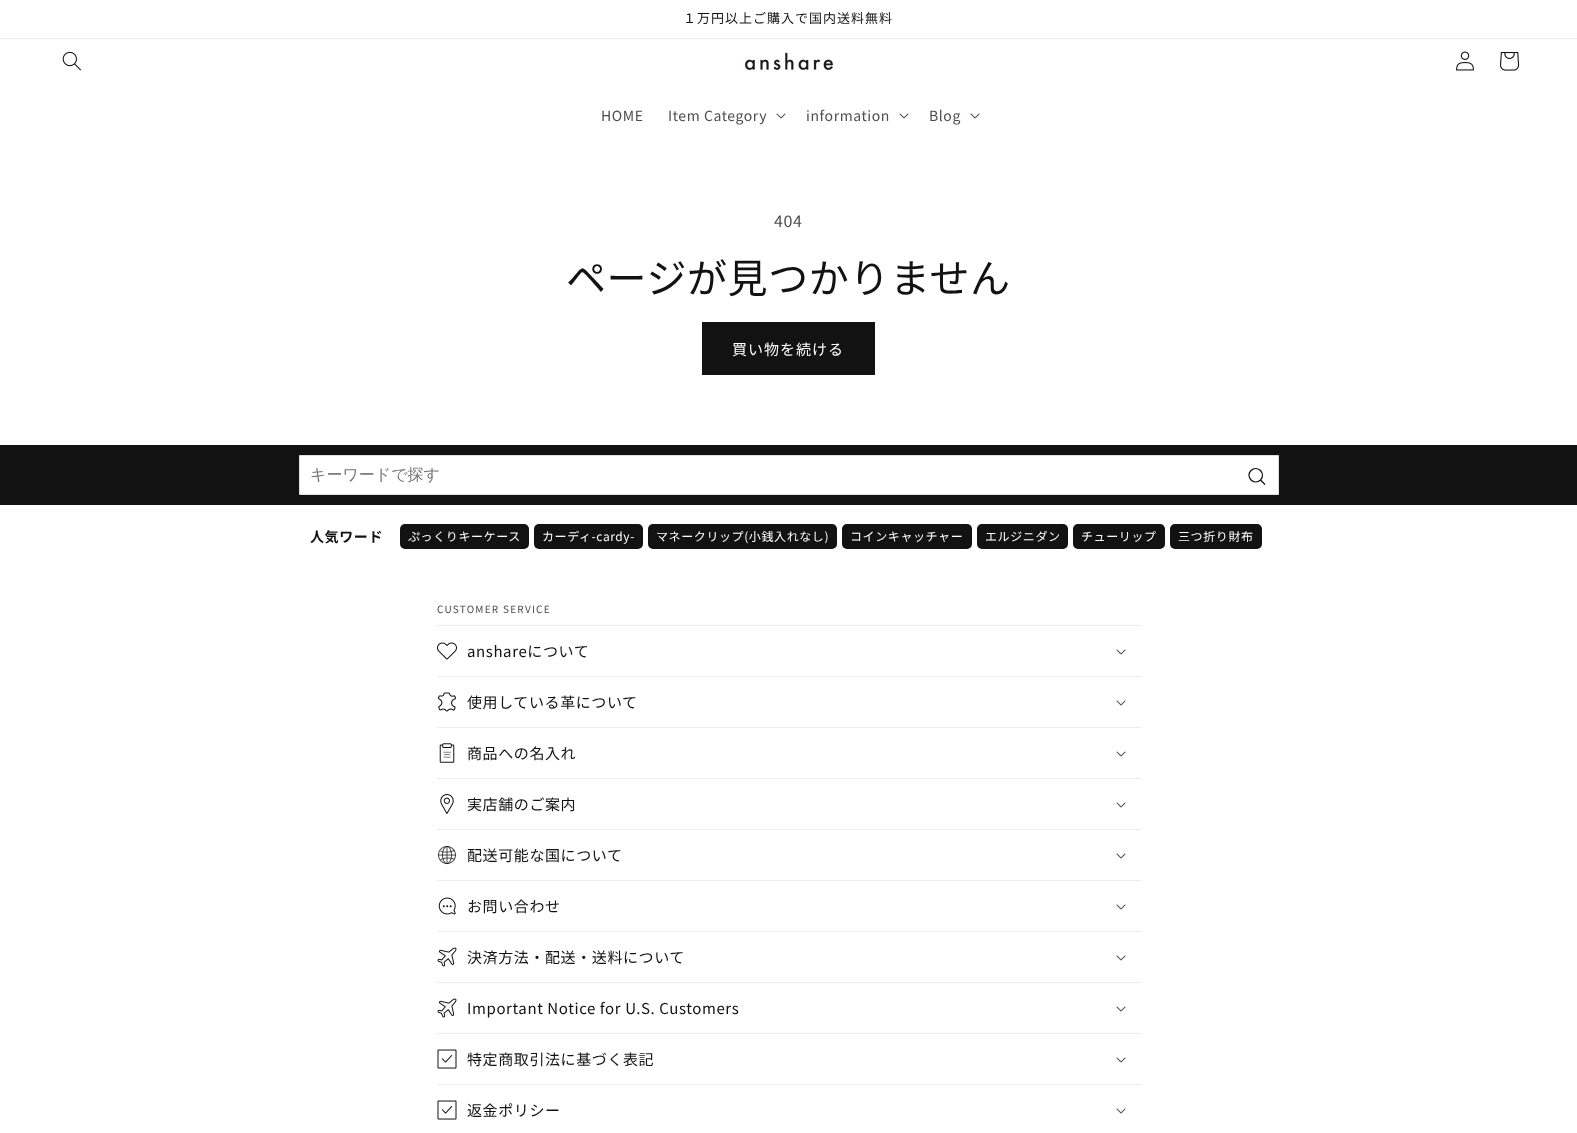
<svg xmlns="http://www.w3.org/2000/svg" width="1577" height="1133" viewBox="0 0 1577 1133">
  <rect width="100%" height="100%" fill="#fff"/>
  <path d="M0 38h1577v1H0z" fill="#ececec"/>
  <image x="62" y="51" width="19" height="20" href="img/1.png"/>
  <image x="744" y="52" width="89" height="18" href="img/2.png"/>
  <image x="1456" y="51" width="18" height="20" href="img/3.png"/>
  <image x="1500" y="52" width="20" height="19" href="img/4.png"/>
  <image x="776" y="113" width="10" height="6" href="img/5.png"/>
  <image x="899" y="113" width="10" height="6" href="img/5.png"/>
  <image x="970" y="113" width="10" height="6" href="img/5.png"/>
  <path d="M702 322h173v53H702z" fill="#121212"/>
  <path d="M0 445h1577v60H0z" fill="#121212"/>
  <path d="M299.5 455.5h979v39H299.5z" fill="#fff" stroke="#dfdfdf"/>
  <path d="M1260.5 480C1266.5 473.5 1257.5 464.5 1251 470.5C1245 477 1254 486 1260.5 480ZM1260.5 480L1265 484.5" fill="none" stroke="#121212" stroke-width="1.3"/>
  <rect x="400" y="524" width="129" height="25" rx="5" fill="#121212"/>
  <rect x="534" y="524" width="109" height="25" rx="5" fill="#121212"/>
  <rect x="648" y="524" width="189" height="25" rx="5" fill="#121212"/>
  <rect x="842" y="524" width="130" height="25" rx="5" fill="#121212"/>
  <rect x="977" y="524" width="91" height="25" rx="5" fill="#121212"/>
  <rect x="1073" y="524" width="92" height="25" rx="5" fill="#121212"/>
  <rect x="1170" y="524" width="92" height="25" rx="5" fill="#121212"/>
  <path d="M437 625h704v1H437z" fill="#ececec"/>
  <path d="M437 676h704v1H437z" fill="#ececec"/>
  <image x="437" y="642" width="20" height="18" href="img/6.png"/>
  <image x="1116" y="649" width="10" height="6" href="img/5.png"/>
  <path d="M437 727h704v1H437z" fill="#ececec"/>
  <image x="438" y="692" width="18" height="20" href="img/7.png"/>
  <image x="1116" y="700" width="10" height="6" href="img/5.png"/>
  <path d="M437 778h704v1H437z" fill="#ececec"/>
  <image x="439" y="743" width="16" height="20" href="img/8.png"/>
  <image x="1116" y="751" width="10" height="6" href="img/5.png"/>
  <path d="M437 829h704v1H437z" fill="#ececec"/>
  <image x="440" y="794" width="14" height="20" href="img/9.png"/>
  <image x="1116" y="802" width="10" height="6" href="img/5.png"/>
  <path d="M437 880h704v1H437z" fill="#ececec"/>
  <image x="437" y="845" width="20" height="20" href="img/10.png"/>
  <image x="1116" y="853" width="10" height="6" href="img/5.png"/>
  <path d="M437 931h704v1H437z" fill="#ececec"/>
  <image x="438" y="897" width="18" height="18" href="img/11.png"/>
  <image x="1116" y="904" width="10" height="6" href="img/5.png"/>
  <path d="M437 982h704v1H437z" fill="#ececec"/>
  <image x="437" y="947" width="20" height="20" href="img/12.png"/>
  <image x="1116" y="955" width="10" height="6" href="img/5.png"/>
  <path d="M437 1033h704v1H437z" fill="#ececec"/>
  <image x="437" y="998" width="20" height="20" href="img/12.png"/>
  <image x="1116" y="1006" width="10" height="6" href="img/5.png"/>
  <path d="M437 1084h704v1H437z" fill="#ececec"/>
  <image x="437" y="1049" width="20" height="20" href="img/13.png"/>
  <image x="1116" y="1057" width="10" height="6" href="img/5.png"/>
  <image x="437" y="1100" width="20" height="20" href="img/13.png"/>
  <image x="1116" y="1108" width="10" height="6" href="img/5.png"/>
  <text x="683" y="23" font-family="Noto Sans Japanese" font-size="13" letter-spacing="1" fill="#121212">１万円以上ご購入で国内送料無料</text>
  <g font-family="Noto Sans Japanese" font-size="14" letter-spacing="0.6" fill="#4d4d4d">
    <text x="601" y="121">HOME</text>
    <text x="668" y="121">Item Category</text>
    <text x="806" y="121">information</text>
    <text x="929" y="121">Blog</text>
  </g>
  <text x="774" y="227" font-family="Noto Sans Japanese" font-size="16" letter-spacing="0.6" fill="#4d4d4d">404</text>
  <text x="566" y="293" font-family="Noto Sans Japanese" font-size="40" letter-spacing="0.6" fill="#121212">ページが見つかりません</text>
  <text x="732" y="355" font-family="Noto Sans Japanese" font-size="15" letter-spacing="1" fill="#fff">買い物を続ける</text>
  <text x="310" y="480" font-family="WenQuanYi Zen Hei" font-size="16" font-weight="500" fill="#757575">キーワードで探す</text>
  <text x="310" y="542" font-family="Noto Sans Japanese" font-size="14" font-weight="bold" letter-spacing="0.6" fill="#121212">人気ワード</text>
  <g font-family="Noto Sans Japanese" font-size="12" letter-spacing="0.6" fill="#fff">
    <text x="408" y="541">ぷっくりキーケース</text>
    <text x="542" y="541">カーディ-cardy-</text>
    <text x="656" y="541">マネークリップ(小銭入れなし)</text>
    <text x="850" y="541">コインキャッチャー</text>
    <text x="985" y="541">エルジニダン</text>
    <text x="1081" y="541">チューリップ</text>
    <text x="1178" y="541">三つ折り財布</text>
  </g>
  <text x="437" y="613" font-family="Noto Sans Japanese" font-size="10" letter-spacing="1.25" fill="#4d4d4d">CUSTOMER SERVICE</text>
  <g font-family="Noto Sans Japanese" font-size="15" letter-spacing="0.6" fill="#121212">
    <text x="467" y="657">anshareについて</text>
    <text x="467" y="708">使用している革について</text>
    <text x="467" y="759">商品への名入れ</text>
    <text x="467" y="810">実店舗のご案内</text>
    <text x="467" y="861">配送可能な国について</text>
    <text x="467" y="912">お問い合わせ</text>
    <text x="467" y="963">決済方法・配送・送料について</text>
    <text x="467" y="1014">Important Notice for U.S. Customers</text>
    <text x="467" y="1065">特定商取引法に基づく表記</text>
    <text x="467" y="1116">返金ポリシー</text>
  </g>
</svg>
